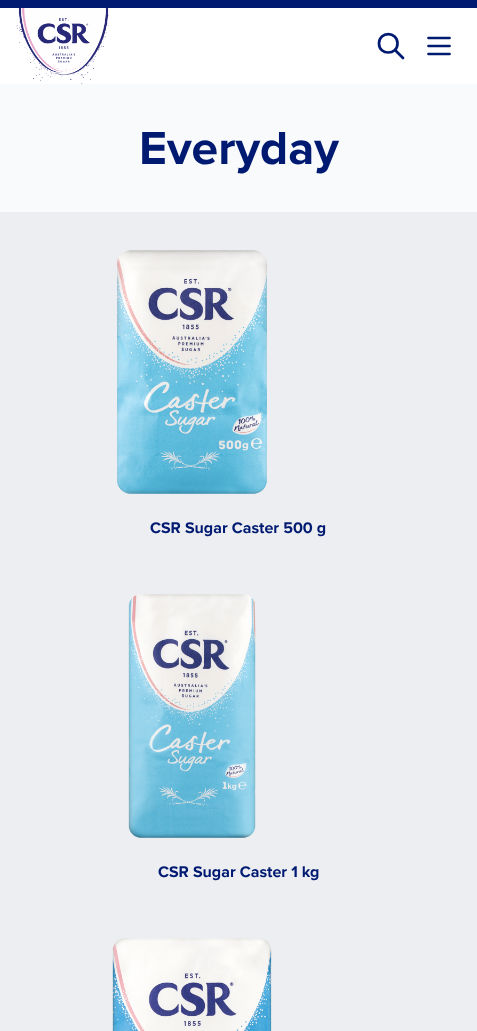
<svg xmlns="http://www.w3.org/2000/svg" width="477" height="1031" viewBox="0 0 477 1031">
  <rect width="100%" height="100%" fill="#f9fafb"/>
  <path d="M0 8h477v76H0z" fill="#fff"/>
  <path d="M0 0h477v8H0z" fill="#001a72"/>
  <image x="16" y="8" width="93" height="76" href="img/1.png"/>
  <path d="M403 58L395 50M397.5 43.5C397.5 55.5 379 55.5 379 43.5C379 31 397.5 31 397.5 43.5Z" fill="none" stroke="#001a72" stroke-width="2.7" stroke-linecap="round" stroke-linejoin="round"/>
  <path d="M428.5 38H449.5M428.5 46H449.5M428.5 54H449.5" fill="none" stroke="#001a72" stroke-width="2.7" stroke-linecap="round" stroke-linejoin="round"/>
  <path d="M0 212h477v819H0z" fill="#edeef1"/>
  <image x="117" y="250" width="150" height="244" href="img/2.png"/>
  <image x="128" y="594" width="128" height="244" href="img/3.png"/>
  <image x="112" y="938" width="160" height="93" href="img/4.png"/>
  <text x="139" y="164" font-family="Proxima Nova" font-size="48" font-weight="bold" fill="#001a72">Everyday</text>
  <g font-family="Proxima Nova" font-size="16" font-weight="bold" fill="#001a72">
    <text x="150" y="533">CSR Sugar Caster 500 g</text>
    <text x="158" y="877">CSR Sugar Caster 1 kg</text>
  </g>
</svg>
